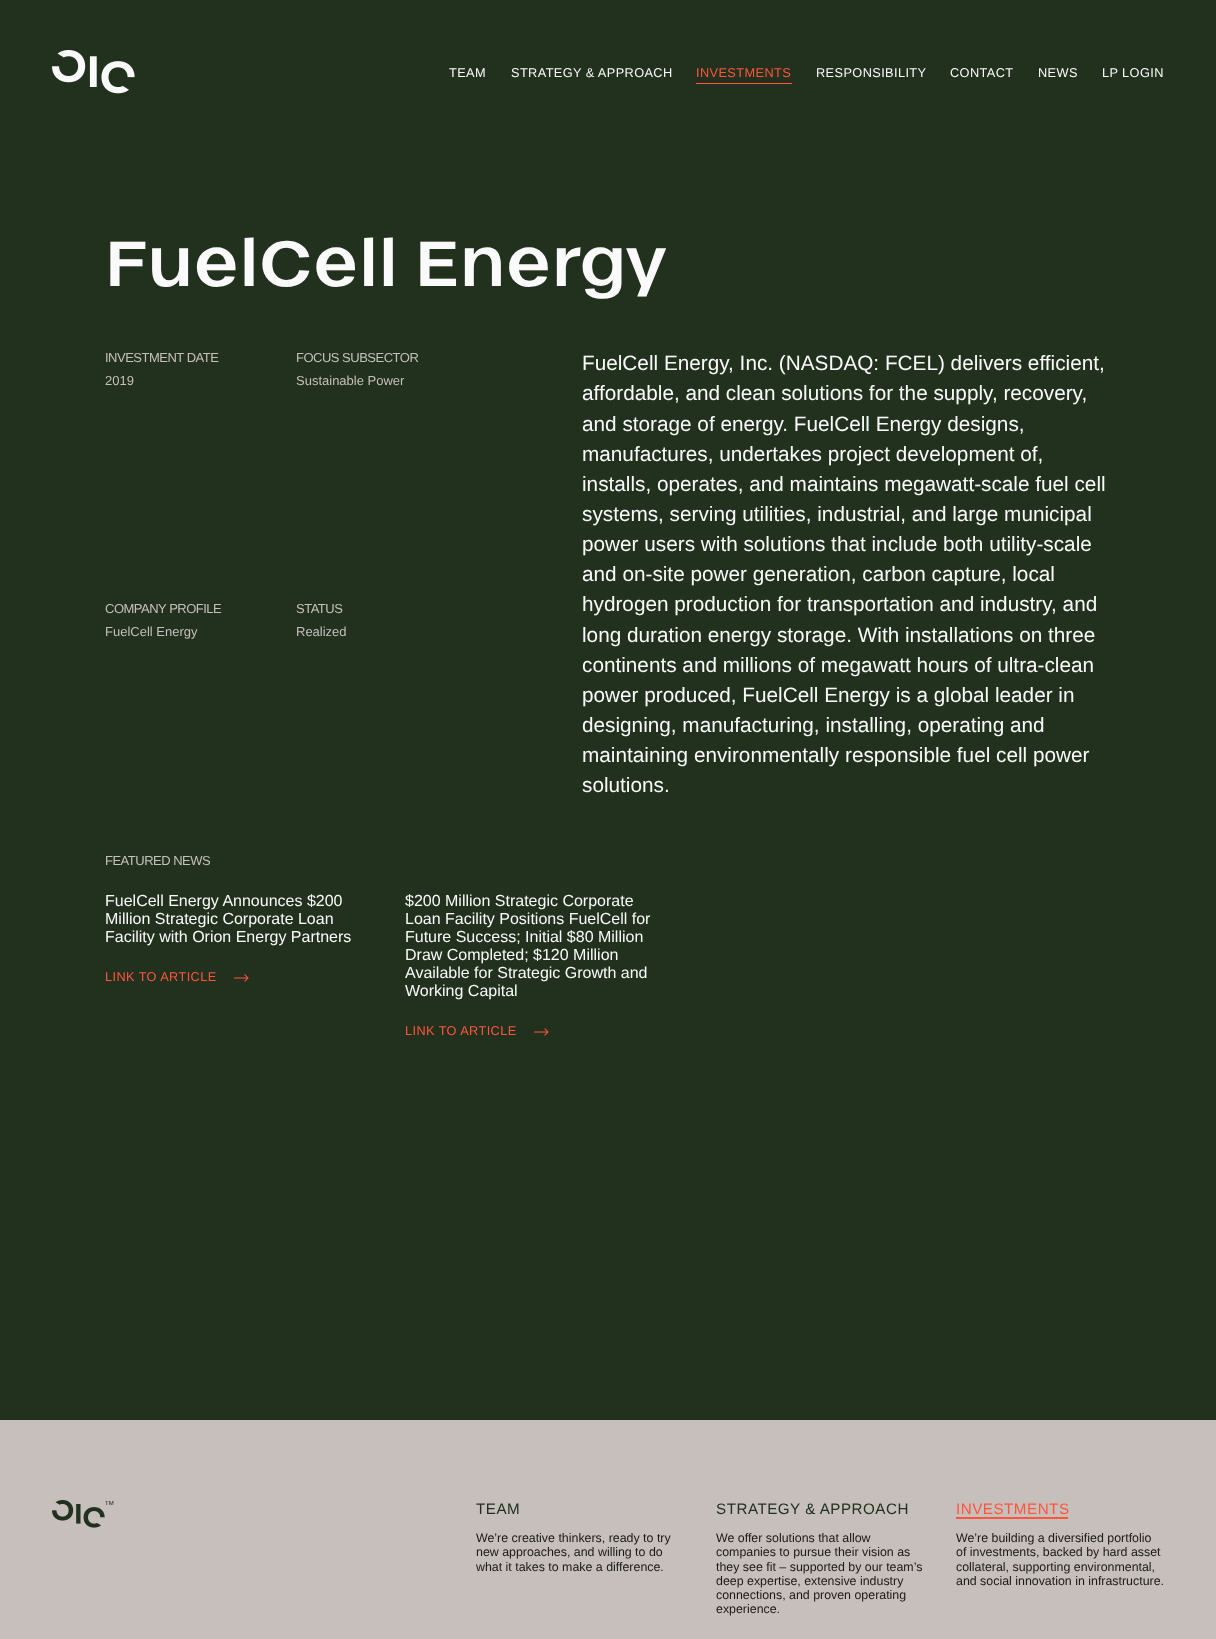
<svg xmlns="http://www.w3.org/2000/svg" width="1216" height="1639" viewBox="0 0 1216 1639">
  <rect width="100%" height="100%" fill="#22311e"/>
  <image x="52" y="50" width="83" height="44" href="img/1.png"/>
  <path d="M696 83h96v1H696z" fill="#ff553d"/>
  <image x="234" y="974" width="15" height="8" href="img/2.png"/>
  <image x="534" y="1028" width="15" height="8" href="img/2.png"/>
  <path d="M0 1420h1216v219H0z" fill="#c7bfbb"/>
  <image x="52" y="1500" width="53" height="28" href="img/3.png"/>
  <path d="M956 1517h112v2H956z" fill="#ff553d"/>
  <g font-family="Liberation Sans" font-size="12.75" letter-spacing="0.4" fill="#fafafa">
    <text x="449" y="77">TEAM</text>
    <text x="511" y="77">STRATEGY &amp; APPROACH</text>
  </g>
  <text x="696" y="77" font-family="Liberation Sans" font-size="12.75" letter-spacing="0.4" fill="#ff553d">INVESTMENTS</text>
  <g font-family="Liberation Sans" font-size="12.75" letter-spacing="0.4" fill="#fafafa">
    <text x="816" y="77">RESPONSIBILITY</text>
    <text x="950" y="77">CONTACT</text>
    <text x="1038" y="77">NEWS</text>
    <text x="1102" y="77">LP LOGIN</text>
  </g>
  <text x="105" y="286" font-family="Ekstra" font-size="65" font-weight="bold" fill="#fafafa">FuelCell Energy</text>
  <text x="105" y="362" font-family="Liberation Sans" font-size="13" letter-spacing="-0.5" fill="#c7bfbb">INVESTMENT DATE</text>
  <text x="105" y="385" font-family="Liberation Sans" font-size="13" fill="#c7bfbb">2019</text>
  <text x="296" y="362" font-family="Liberation Sans" font-size="13" letter-spacing="-0.5" fill="#c7bfbb">FOCUS SUBSECTOR</text>
  <text x="296" y="385" font-family="Liberation Sans" font-size="13" fill="#c7bfbb">Sustainable Power</text>
  <text x="105" y="613" font-family="Liberation Sans" font-size="13" letter-spacing="-0.5" fill="#c7bfbb">COMPANY PROFILE</text>
  <text x="105" y="636" font-family="Liberation Sans" font-size="13" fill="#c7bfbb">FuelCell Energy</text>
  <text x="296" y="613" font-family="Liberation Sans" font-size="13" letter-spacing="-0.5" fill="#c7bfbb">STATUS</text>
  <text x="296" y="636" font-family="Liberation Sans" font-size="13" fill="#c7bfbb">Realized</text>
  <g font-family="Liberation Sans" font-size="20.75" fill="#fafafa">
    <text x="582" y="370">FuelCell Energy, Inc. (NASDAQ: FCEL) delivers efficient,</text>
    <text x="582" y="400">affordable, and clean solutions for the supply, recovery,</text>
    <text x="582" y="431">and storage of energy. FuelCell Energy designs,</text>
    <text x="582" y="461">manufactures, undertakes project development of,</text>
    <text x="582" y="491">installs, operates, and maintains megawatt-scale fuel cell</text>
    <text x="582" y="521">systems, serving utilities, industrial, and large municipal</text>
    <text x="582" y="551">power users with solutions that include both utility-scale</text>
    <text x="582" y="581">and on-site power generation, carbon capture, local</text>
    <text x="582" y="611">hydrogen production for transportation and industry, and</text>
    <text x="582" y="642">long duration energy storage. With installations on three</text>
    <text x="582" y="672">continents and millions of megawatt hours of ultra-clean</text>
    <text x="582" y="702">power produced, FuelCell Energy is a global leader in</text>
    <text x="582" y="732">designing, manufacturing, installing, operating and</text>
    <text x="582" y="762">maintaining environmentally responsible fuel cell power</text>
    <text x="582" y="792">solutions.</text>
  </g>
  <text x="105" y="865" font-family="Liberation Sans" font-size="13" letter-spacing="-0.5" fill="#c7bfbb">FEATURED NEWS</text>
  <g font-family="Liberation Sans" font-size="16" fill="#fafafa">
    <text x="105" y="906">FuelCell Energy Announces $200</text>
    <text x="105" y="924">Million Strategic Corporate Loan</text>
    <text x="105" y="942">Facility with Orion Energy Partners</text>
  </g>
  <text x="105" y="981" font-family="Liberation Sans" font-size="12.75" letter-spacing="0.4" fill="#ff553d">LINK TO ARTICLE</text>
  <g font-family="Liberation Sans" font-size="16" fill="#fafafa">
    <text x="405" y="906">$200 Million Strategic Corporate</text>
    <text x="405" y="924">Loan Facility Positions FuelCell for</text>
    <text x="405" y="942">Future Success; Initial $80 Million</text>
    <text x="405" y="960">Draw Completed; $120 Million</text>
    <text x="405" y="978">Available for Strategic Growth and</text>
    <text x="405" y="996">Working Capital</text>
  </g>
  <text x="405" y="1035" font-family="Liberation Sans" font-size="12.75" letter-spacing="0.4" fill="#ff553d">LINK TO ARTICLE</text>
  <text x="105" y="1505" font-family="Liberation Sans" font-size="6" fill="#191919">TM</text>
  <text x="476" y="1514" font-family="Liberation Sans" font-size="15.2" letter-spacing="0.5" fill="#22311e">TEAM</text>
  <g font-family="Liberation Sans" font-size="12.4" fill="#191919">
    <text x="476" y="1542">We’re creative thinkers, ready to try</text>
    <text x="476" y="1556">new approaches, and willing to do</text>
    <text x="476" y="1571">what it takes to make a difference.</text>
  </g>
  <text x="716" y="1514" font-family="Liberation Sans" font-size="15.2" letter-spacing="0.5" fill="#22311e">STRATEGY &amp; APPROACH</text>
  <g font-family="Liberation Sans" font-size="12.4" fill="#191919">
    <text x="716" y="1542">We offer solutions that allow</text>
    <text x="716" y="1556">companies to pursue their vision as</text>
    <text x="716" y="1571">they see fit – supported by our team’s</text>
    <text x="716" y="1585">deep expertise, extensive industry</text>
    <text x="716" y="1599">connections, and proven operating</text>
    <text x="716" y="1613">experience.</text>
  </g>
  <text x="956" y="1514" font-family="Liberation Sans" font-size="15.2" letter-spacing="0.5" fill="#ff553d">INVESTMENTS</text>
  <g font-family="Liberation Sans" font-size="12.4" fill="#191919">
    <text x="956" y="1542">We’re building a diversified portfolio</text>
    <text x="956" y="1556">of investments, backed by hard asset</text>
    <text x="956" y="1571">collateral, supporting environmental,</text>
    <text x="956" y="1585">and social innovation in infrastructure.</text>
  </g>
</svg>
